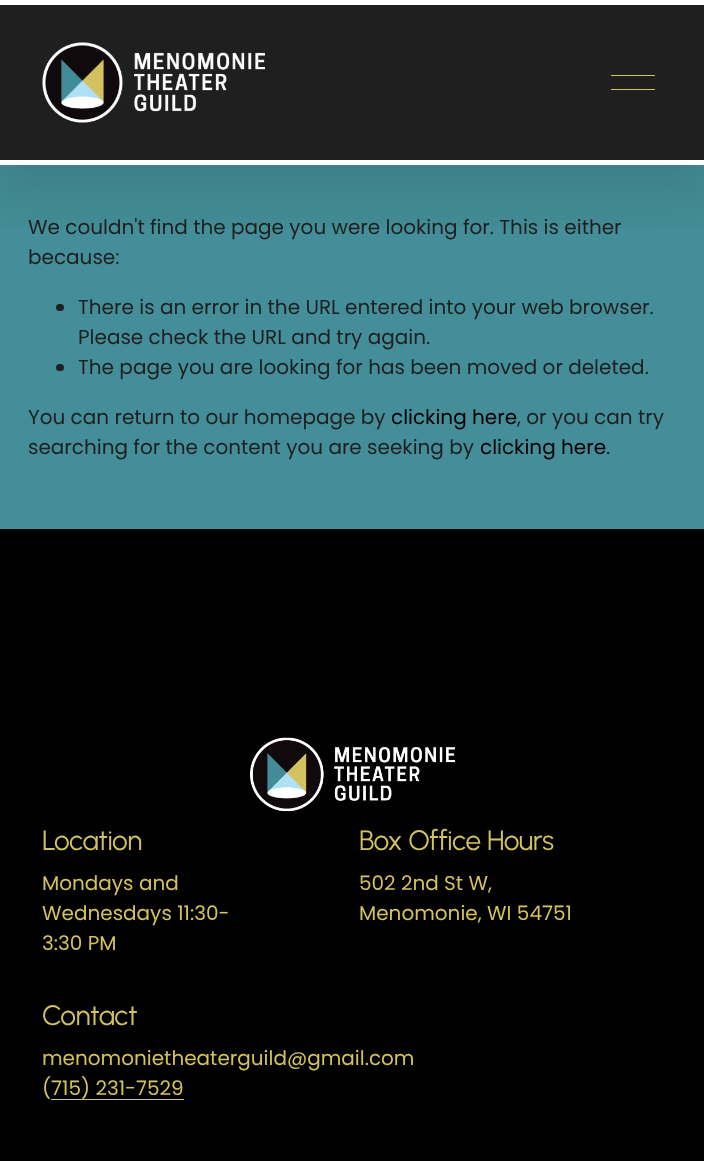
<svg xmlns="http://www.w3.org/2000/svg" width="704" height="1161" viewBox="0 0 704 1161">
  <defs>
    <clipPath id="clip1"><path d="M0 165h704v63H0z"/></clipPath>
  </defs>
  <rect width="100%" height="100%" fill="#438e98"/>
  <path d="M0 5h704v155H0z" fill="#201f1f"/>
  <g clip-path="url(#clip1)">
    <path d="M-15 0h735v195H-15z" fill="#201f1f26" filter="blur(30px)"/>
  </g>
  <path d="M0 0h704v5H0z" fill="#fff"/>
  <path d="M0 160h704v5H0z" fill="#fff"/>
  <image x="42" y="42" width="223" height="81" href="img/1.png"/>
  <path d="M611 75h44v1H611z" fill="#d3c25f"/>
  <path d="M611 89h44v1H611z" fill="#d3c25f"/>
  <rect x="56" y="304" width="8" height="7" rx="3.5" fill="#201f1f"/>
  <rect x="56" y="364" width="8" height="7" rx="3.5" fill="#201f1f"/>
  <path d="M0 529h704v632H0z" fill="#000"/>
  <image x="250" y="737" width="205" height="75" href="img/2.png"/>
  <path d="M51 1099h133v1H51z" fill="#d3c25f"/>
  <g font-family="Poppins" font-size="20" fill="#201f1f">
    <text x="28" y="234">We couldn't find the page you were looking for. This is either</text>
    <text x="28" y="264">because:</text>
    <text x="78" y="314">There is an error in the URL entered into your web browser.</text>
    <text x="78" y="344">Please check the URL and try again.</text>
    <text x="78" y="374">The page you are looking for has been moved or deleted.</text>
    <text x="28" y="424">You can return to our homepage by</text>
  </g>
  <text x="391" y="424" font-family="Poppins" font-size="20" fill="#000">clicking here</text>
  <g font-family="Poppins" font-size="20" fill="#201f1f">
    <text x="517" y="424">, or you can try</text>
    <text x="28" y="454">searching for the content you are seeking by</text>
  </g>
  <text x="480" y="454" font-family="Poppins" font-size="20" fill="#000">clicking here</text>
  <text x="606" y="454" font-family="Poppins" font-size="20" fill="#201f1f">.</text>
  <g font-family="Urbanist" font-size="28" letter-spacing="-0.5" fill="#d3c25f">
    <text x="42" y="850">Location</text>
    <text x="359" y="850">Box Office Hours</text>
  </g>
  <g font-family="Poppins" font-size="20" fill="#d3c25f">
    <text x="42" y="890">Mondays and</text>
    <text x="42" y="920">Wednesdays 11:30-</text>
    <text x="42" y="950">3:30 PM</text>
    <text x="359" y="890">502 2nd St W,</text>
    <text x="359" y="920">Menomonie, WI 54751</text>
  </g>
  <text x="42" y="1025" font-family="Urbanist" font-size="28" letter-spacing="-0.5" fill="#d3c25f">Contact</text>
  <g font-family="Poppins" font-size="20" fill="#d3c25f">
    <text x="42" y="1065">menomonietheaterguild@gmail.com</text>
    <text x="42" y="1095">(715) 231-7529</text>
  </g>
</svg>
